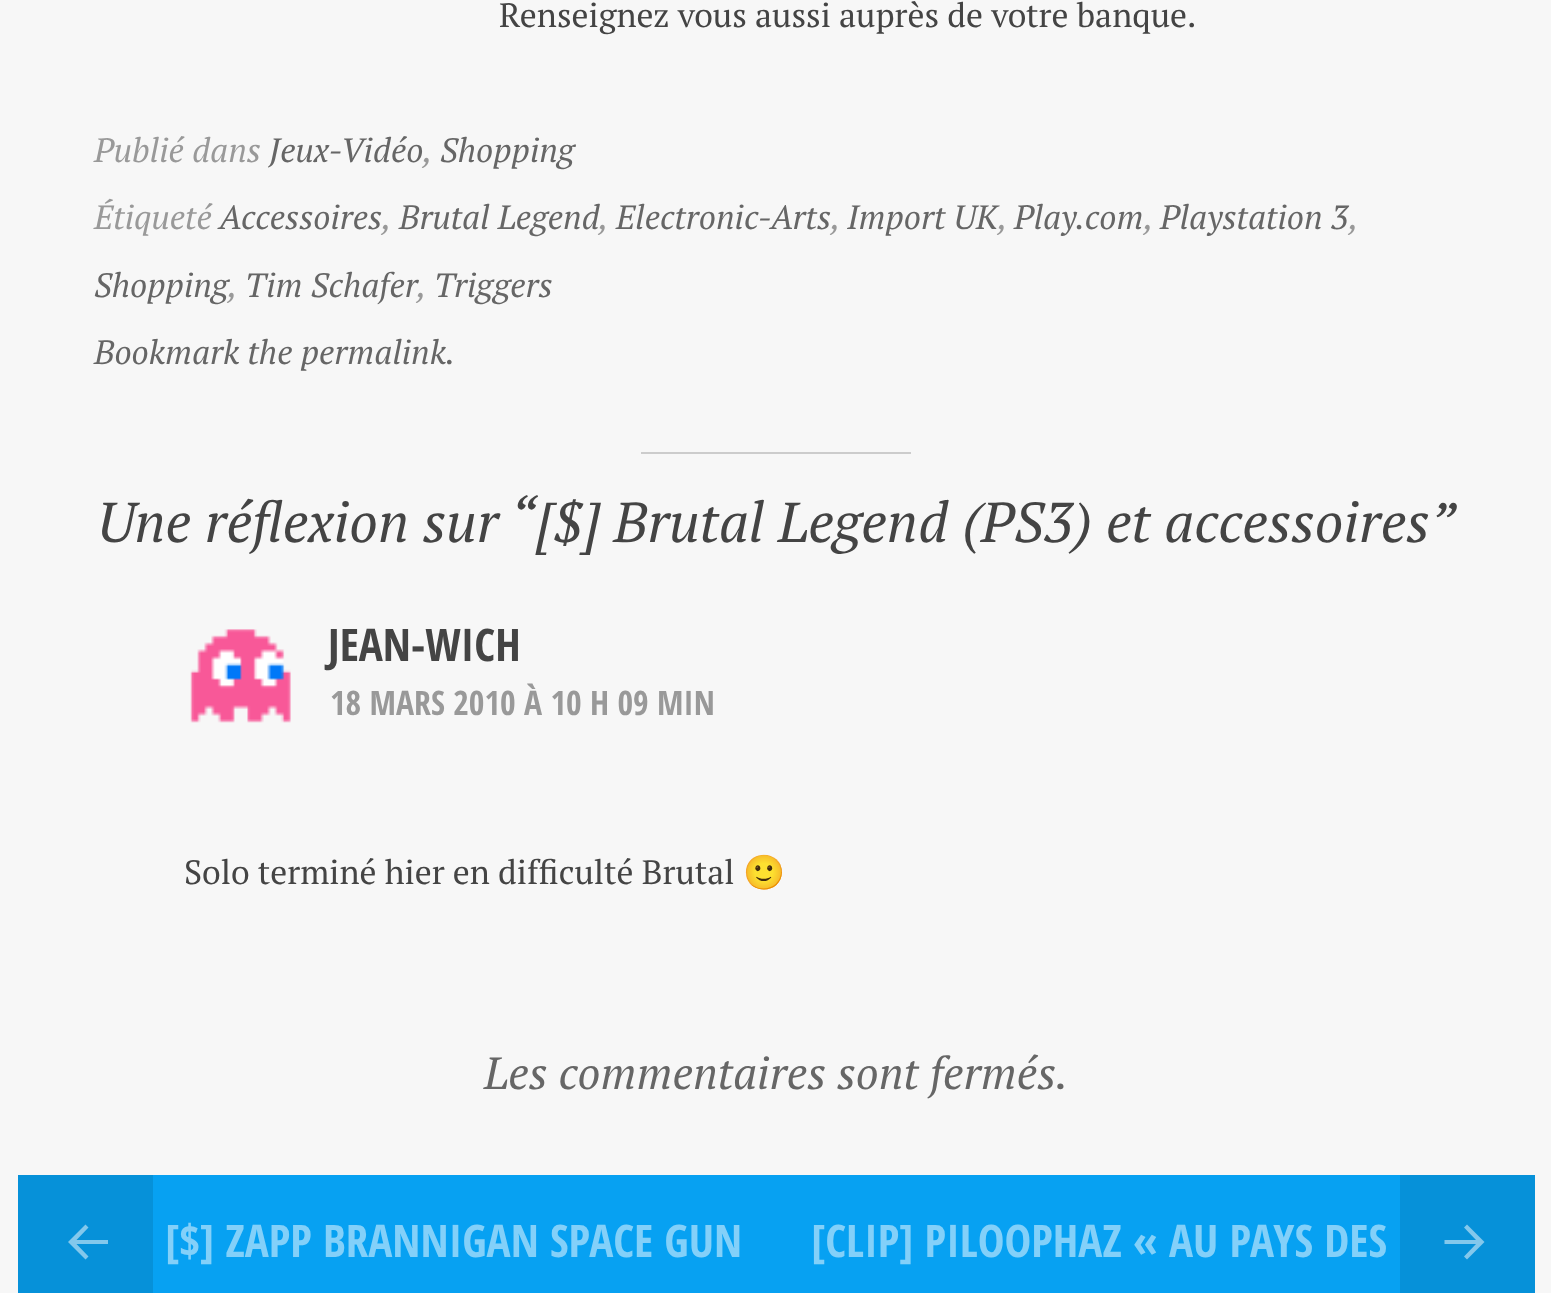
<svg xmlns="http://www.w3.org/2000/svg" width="1551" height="1293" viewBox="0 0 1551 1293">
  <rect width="100%" height="100%" fill="#f7f7f7"/>
  <path d="M641 452h270v2H641z" fill="#ccc"/>
  <image x="190" y="629" width="101" height="94" href="img/1.png"/>
  <path d="M153 1175h1247v118H153z" fill="#07a1f2"/>
  <path d="M18 1175h135v118H18z" fill="#0691d9"/>
  <path d="M68 1242L85.5 1259.5L88.5 1256.5L76.5 1244H108V1240H76.5L88.5 1227.5L85.5 1224.5Z" fill="#83c8ec"/>
  <path d="M1400 1175h135v118H1400z" fill="#0691d9"/>
  <path d="M1444.5 1244V1240H1476L1464 1227.5L1467 1224.5L1484.5 1242L1467 1259.5L1464 1256.5L1476 1244Z" fill="#83c8ec"/>
  <text x="499" y="27" font-family="PT Serif" font-size="33.75" fill="#444">Renseignez vous aussi auprès de votre banque.</text>
  <text x="94" y="162" font-family="PT Serif" font-size="33.75" font-style="italic" fill="#999">Publié dans</text>
  <text x="269" y="162" font-family="PT Serif" font-size="33.75" font-style="italic" fill="#666">Jeux-Vidéo</text>
  <text x="423" y="162" font-family="PT Serif" font-size="33.75" font-style="italic" fill="#999">,</text>
  <text x="440" y="162" font-family="PT Serif" font-size="33.75" font-style="italic" fill="#666">Shopping</text>
  <text x="94" y="229" font-family="PT Serif" font-size="33.75" font-style="italic" fill="#999">Étiqueté</text>
  <text x="219" y="229" font-family="PT Serif" font-size="33.75" font-style="italic" fill="#666">Accessoires</text>
  <text x="382" y="229" font-family="PT Serif" font-size="33.75" font-style="italic" fill="#999">,</text>
  <text x="399" y="229" font-family="PT Serif" font-size="33.75" font-style="italic" fill="#666">Brutal Legend</text>
  <text x="599" y="229" font-family="PT Serif" font-size="33.75" font-style="italic" fill="#999">,</text>
  <text x="616" y="229" font-family="PT Serif" font-size="33.75" font-style="italic" fill="#666">Electronic-Arts</text>
  <text x="831" y="229" font-family="PT Serif" font-size="33.75" font-style="italic" fill="#999">,</text>
  <g font-family="PT Serif" font-size="33.75" font-style="italic" fill="#666">
    <text x="847" y="229">Import UK</text>
    <text x="1014" y="229">Play.com</text>
    <text x="1160" y="229">Playstation 3</text>
  </g>
  <g font-family="PT Serif" font-size="33.75" font-style="italic" fill="#999">
    <text x="998" y="229">,</text>
    <text x="1144" y="229">,</text>
    <text x="1349" y="229">,</text>
  </g>
  <text x="94" y="297" font-family="PT Serif" font-size="33.75" font-style="italic" fill="#666">Shopping</text>
  <text x="228" y="297" font-family="PT Serif" font-size="33.75" font-style="italic" fill="#999">,</text>
  <text x="245" y="297" font-family="PT Serif" font-size="33.75" font-style="italic" fill="#666">Tim Schafer</text>
  <text x="417" y="297" font-family="PT Serif" font-size="33.75" font-style="italic" fill="#999">,</text>
  <g font-family="PT Serif" font-size="33.75" font-style="italic" fill="#666">
    <text x="434" y="297">Triggers</text>
    <text x="94" y="364">Bookmark the permalink.</text>
  </g>
  <text x="97" y="542" font-family="PT Serif" font-size="56.25" font-style="italic" fill="#444">Une réflexion sur “[$] Brutal Legend (PS3) et accessoires”</text>
  <text x="328" y="661" font-family="Open Sans Condensed" font-size="45" font-weight="bold" fill="#444">JEAN-WICH</text>
  <text x="330" y="715" font-family="Open Sans Condensed" font-size="33.75" font-weight="bold" fill="#999">18 MARS 2010 À 10 H 09 MIN</text>
  <text x="184" y="884" font-family="PT Serif" font-size="33.75" fill="#444">Solo terminé hier en difficulté Brutal</text>
  <text x="743" y="884" font-family="Noto Color Emoji" font-size="33.75" fill="#444">🙂</text>
  <text x="484" y="1089" font-family="PT Serif" font-size="45" font-style="italic" fill="#666">Les commentaires sont fermés.</text>
  <g font-family="Open Sans Condensed" font-size="45" font-weight="bold" fill="#83d0f9">
    <text x="165" y="1257">[$] ZAPP BRANNIGAN SPACE GUN</text>
    <text x="811" y="1257">[CLIP] PILOOPHAZ « AU PAYS DES</text>
  </g>
</svg>
